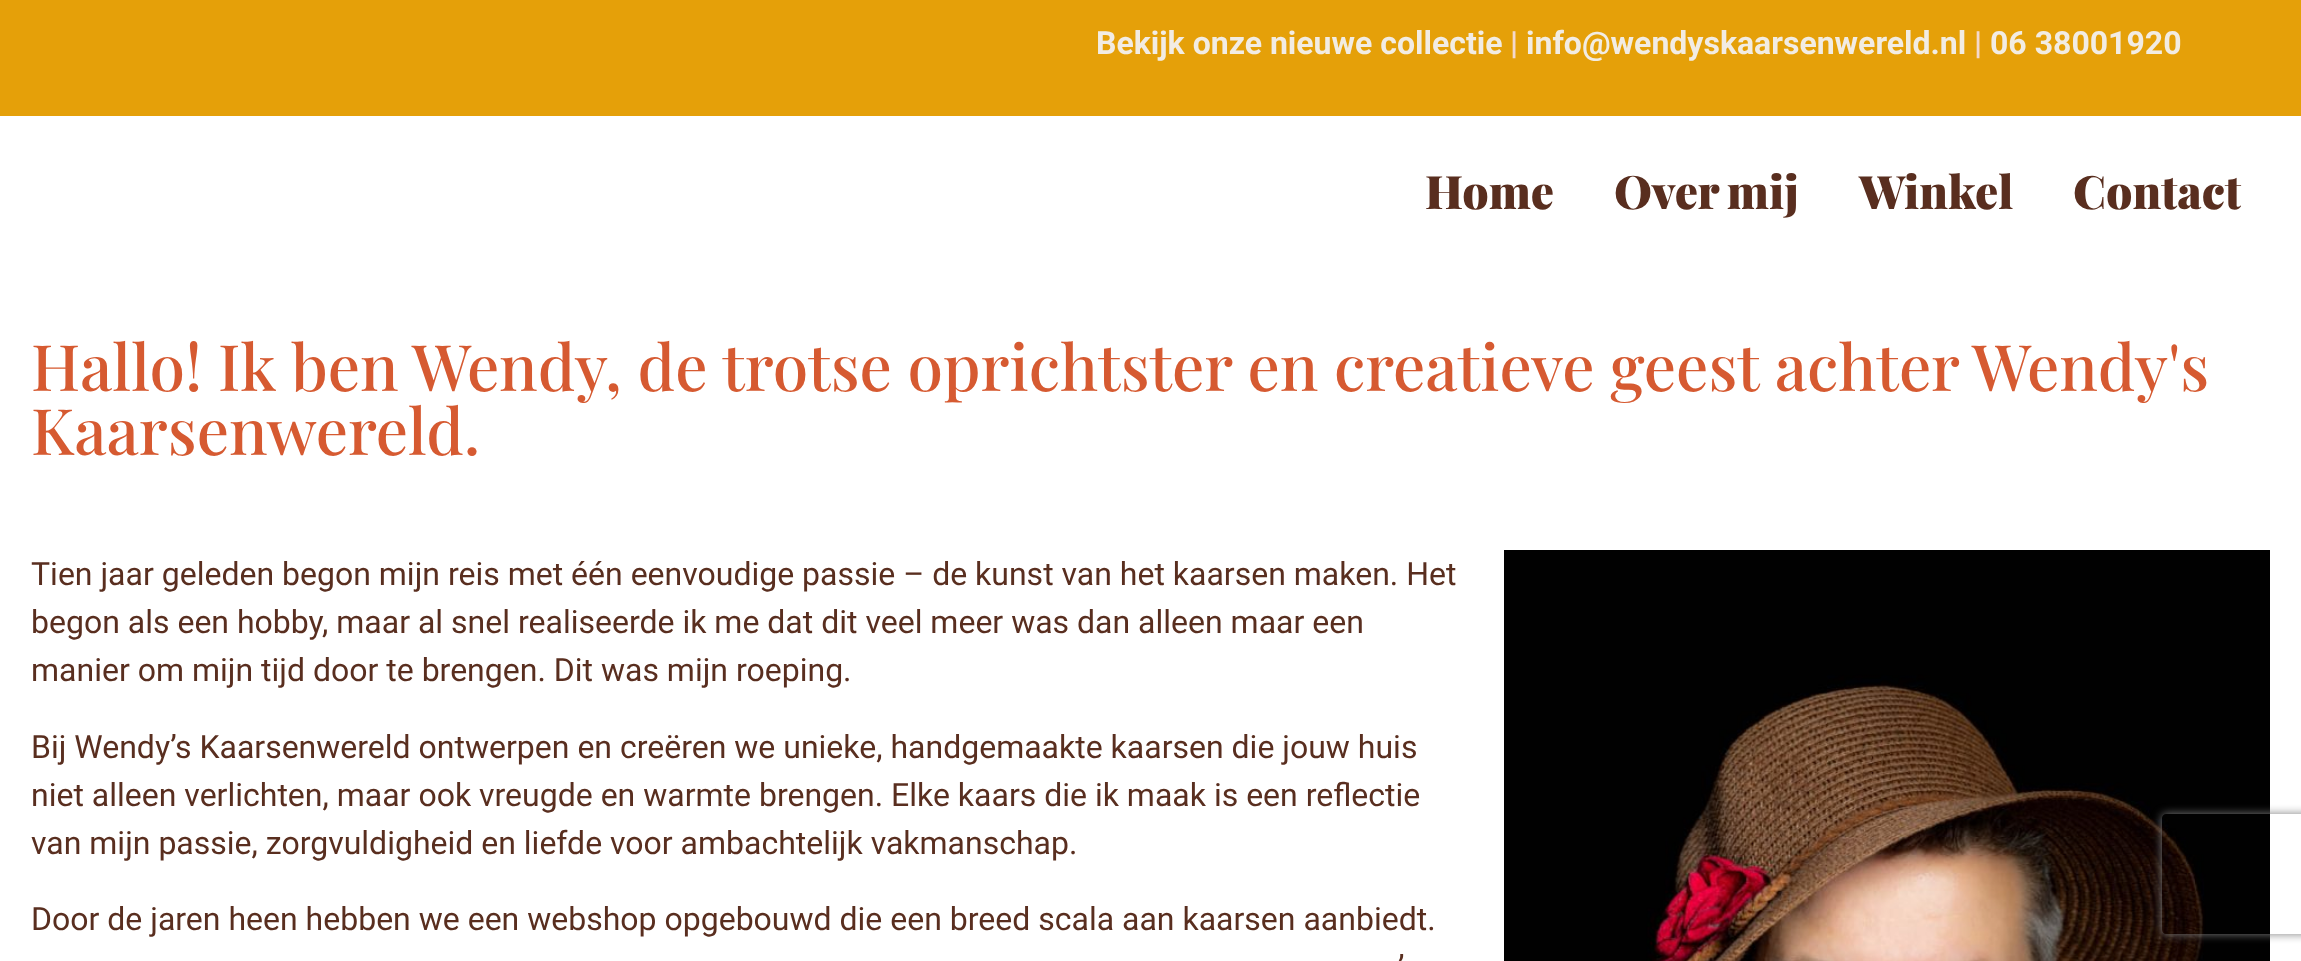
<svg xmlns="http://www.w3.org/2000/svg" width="2301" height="961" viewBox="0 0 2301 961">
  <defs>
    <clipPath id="clip1"><path d="M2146 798H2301V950H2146ZM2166 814H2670C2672 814 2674 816 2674 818V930C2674 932 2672 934 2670 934H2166C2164 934 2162 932 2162 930V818C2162 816 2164 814 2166 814Z" clip-rule="evenodd"/></clipPath>
  </defs>
  <rect width="100%" height="100%" fill="#fff"/>
  <path d="M0 0h2301v116H0z" fill="#e5a009"/>
  <image x="1504" y="550" width="766" height="411" href="img/1.png"/>
  <g clip-path="url(#clip1)">
    <rect x="2162" y="814" width="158" height="120" rx="4" fill="#808080" filter="blur(5px)"/>
  </g>
  <text x="1096" y="54" font-family="Roboto" font-size="32" font-weight="bold" fill="#f2ece3">Bekijk onze nieuwe collectie</text>
  <text x="1510" y="54" font-family="Roboto" font-size="32" font-weight="bold" fill="#f4d8cd">|</text>
  <text x="1526" y="54" font-family="Roboto" font-size="32" font-weight="bold" fill="#f2ece3">info@wendyskaarsenwereld.nl</text>
  <text x="1974" y="54" font-family="Roboto" font-size="32" font-weight="bold" fill="#f4d8cd">|</text>
  <text x="1990" y="54" font-family="Roboto" font-size="32" font-weight="bold" fill="#f2ece3">06 38001920</text>
  <g font-family="Playfair Display" font-size="46" font-weight="900" fill="#592e1f">
    <text x="1425" y="209">Home</text>
    <text x="1614" y="209" word-spacing="-2">Over mij</text>
    <text x="1859" y="209">Winkel</text>
    <text x="2073" y="209">Contact</text>
  </g>
  <g font-family="Playfair Display" font-size="64" font-weight="500" fill="#d65a31">
    <text x="31" y="391">Hallo! Ik ben Wendy, de trotse oprichtster en creatieve geest achter Wendy's</text>
    <text x="31" y="455">Kaarsenwereld.</text>
  </g>
  <g font-family="Roboto" font-size="32" fill="#592e1f">
    <text x="31" y="585">Tien jaar geleden begon mijn reis met één eenvoudige passie – de kunst van het kaarsen maken. Het</text>
    <text x="31" y="633">begon als een hobby, maar al snel realiseerde ik me dat dit veel meer was dan alleen maar een</text>
    <text x="31" y="681">manier om mijn tijd door te brengen. Dit was mijn roeping.</text>
    <text x="31" y="758">Bij Wendy’s Kaarsenwereld ontwerpen en creëren we unieke, handgemaakte kaarsen die jouw huis</text>
    <text x="31" y="806">niet alleen verlichten, maar ook vreugde en warmte brengen. Elke kaars die ik maak is een reflectie</text>
    <text x="31" y="854">van mijn passie, zorgvuldigheid en liefde voor ambachtelijk vakmanschap.</text>
    <text x="31" y="930">Door de jaren heen hebben we een webshop opgebouwd die een breed scala aan kaarsen aanbiedt.</text>
    <text x="1398" y="978">’</text>
  </g>
</svg>
